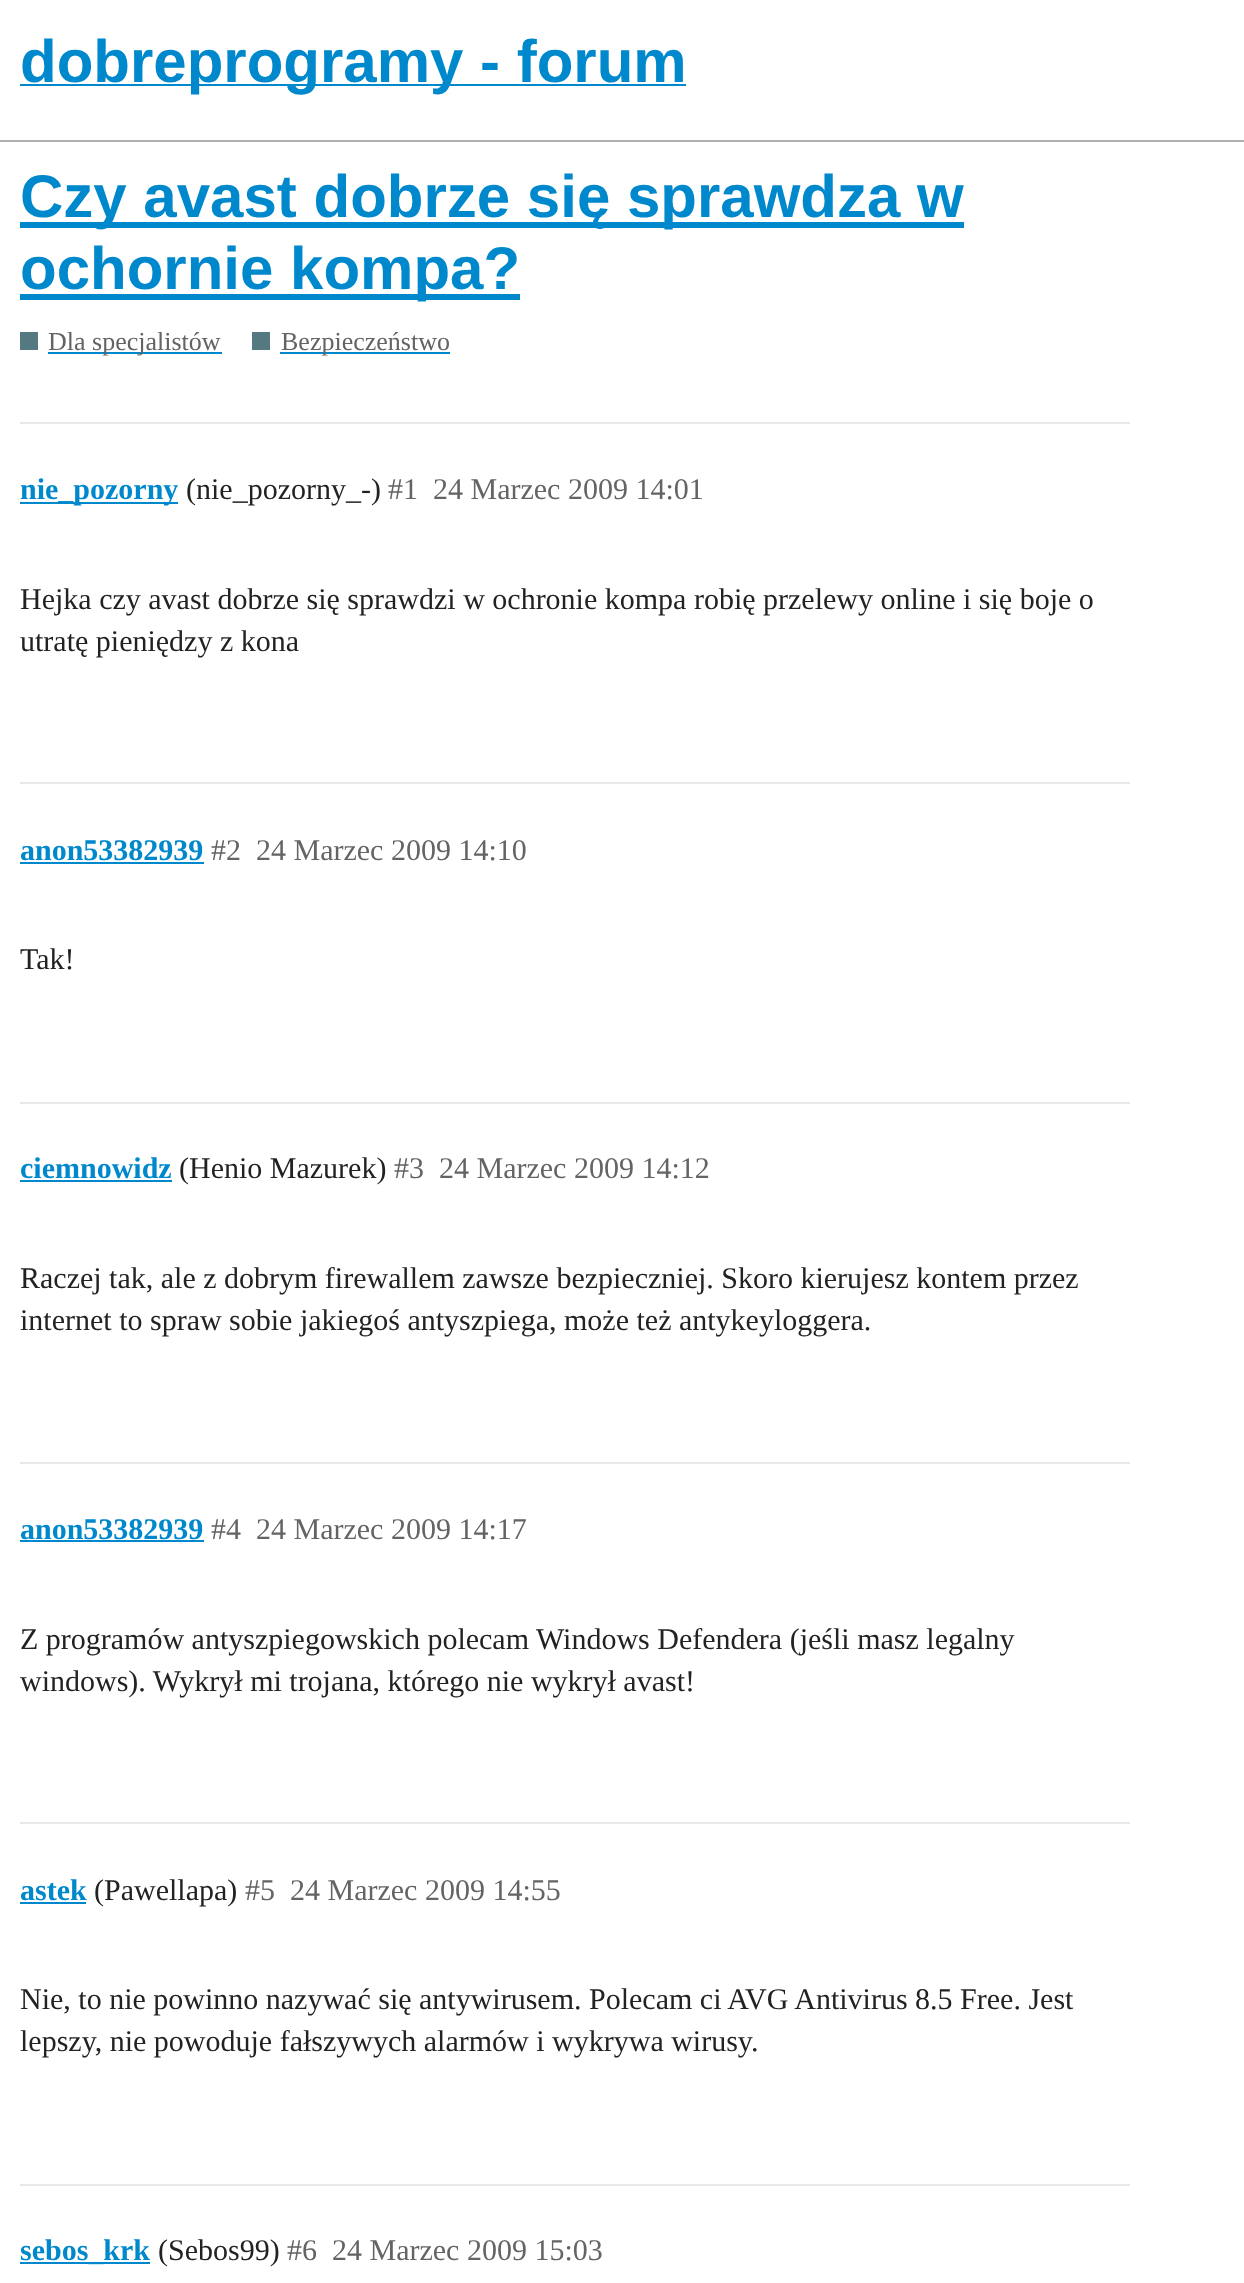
<svg xmlns="http://www.w3.org/2000/svg" width="1244" height="2283" viewBox="0 0 1244 2283">
  <rect width="100%" height="100%" fill="#fff"/>
  <path d="M0 140h1244v2H0z" fill="#afafaf"/>
  <path d="M20 84h666v2H20z" fill="#08c"/>
  <path d="M20 222h944v6H20z" fill="#08c"/>
  <path d="M20 294h500v6H20z" fill="#08c"/>
  <path d="M20 332h18v18H20z" fill="#547980"/>
  <path d="M48 352h174v2H48z" fill="#08c"/>
  <path d="M252 332h18v18H252z" fill="#547980"/>
  <path d="M280 352h170v2H280z" fill="#08c"/>
  <path d="M20 422h1110v2H20z" fill="#e9e9e9"/>
  <path d="M20 502h158v2H20z" fill="#08c"/>
  <path d="M20 782h1110v2H20z" fill="#e9e9e9"/>
  <path d="M20 862h184v2H20z" fill="#08c"/>
  <path d="M20 1102h1110v2H20z" fill="#e9e9e9"/>
  <path d="M20 1180h152v2H20z" fill="#08c"/>
  <path d="M20 1462h1110v2H20z" fill="#e9e9e9"/>
  <path d="M20 1540h184v2H20z" fill="#08c"/>
  <path d="M20 1822h1110v2H20z" fill="#e9e9e9"/>
  <path d="M20 1902h66v2H20z" fill="#08c"/>
  <path d="M20 2184h1110v2H20z" fill="#e9e9e9"/>
  <path d="M20 2262h130v2H20z" fill="#08c"/>
  <g font-family="Liberation Sans" font-size="60" font-weight="bold" fill="#08c">
    <text x="20" y="82">dobreprogramy - forum</text>
    <text x="20" y="217">Czy avast dobrze się sprawdza w</text>
    <text x="20" y="289">ochornie kompa?</text>
  </g>
  <g font-family="Liberation Serif" font-size="26" fill="#646464">
    <text x="48" y="350">Dla specjalistów</text>
    <text x="281" y="350">Bezpieczeństwo</text>
  </g>
  <text x="20" y="499" font-family="Liberation Serif" font-size="30" font-weight="bold" fill="#08c">nie_pozorny</text>
  <text x="186" y="499" font-family="Liberation Serif" font-size="30" fill="#222">(nie_pozorny_-)</text>
  <g font-family="Liberation Serif" font-size="30" fill="#646464">
    <text x="388" y="499">#1</text>
    <text x="433" y="499">24 Marzec 2009 14:01</text>
  </g>
  <g font-family="Liberation Serif" font-size="30" fill="#222">
    <text x="20" y="609">Hejka czy avast dobrze się sprawdzi w ochronie kompa robię przelewy online i się boje o</text>
    <text x="20" y="651">utratę pieniędzy z kona</text>
  </g>
  <text x="20" y="860" font-family="Liberation Serif" font-size="30" font-weight="bold" fill="#08c">anon53382939</text>
  <g font-family="Liberation Serif" font-size="30" fill="#646464">
    <text x="211" y="860">#2</text>
    <text x="256" y="860">24 Marzec 2009 14:10</text>
  </g>
  <text x="20" y="969" font-family="Liberation Serif" font-size="30" fill="#222">Tak!</text>
  <text x="20" y="1178" font-family="Liberation Serif" font-size="30" font-weight="bold" fill="#08c">ciemnowidz</text>
  <text x="179" y="1178" font-family="Liberation Serif" font-size="30" fill="#222">(Henio Mazurek)</text>
  <g font-family="Liberation Serif" font-size="30" fill="#646464">
    <text x="394" y="1178">#3</text>
    <text x="439" y="1178">24 Marzec 2009 14:12</text>
  </g>
  <g font-family="Liberation Serif" font-size="30" fill="#222">
    <text x="20" y="1288">Raczej tak, ale z dobrym firewallem zawsze bezpieczniej. Skoro kierujesz kontem przez</text>
    <text x="20" y="1330">internet to spraw sobie jakiegoś antyszpiega, może też antykeyloggera.</text>
  </g>
  <text x="20" y="1539" font-family="Liberation Serif" font-size="30" font-weight="bold" fill="#08c">anon53382939</text>
  <g font-family="Liberation Serif" font-size="30" fill="#646464">
    <text x="211" y="1539">#4</text>
    <text x="256" y="1539">24 Marzec 2009 14:17</text>
  </g>
  <g font-family="Liberation Serif" font-size="30" fill="#222">
    <text x="20" y="1649">Z programów antyszpiegowskich polecam Windows Defendera (jeśli masz legalny</text>
    <text x="20" y="1691">windows). Wykrył mi trojana, którego nie wykrył avast!</text>
  </g>
  <text x="20" y="1900" font-family="Liberation Serif" font-size="30" font-weight="bold" fill="#08c">astek</text>
  <text x="94" y="1900" font-family="Liberation Serif" font-size="30" fill="#222">(Pawellapa)</text>
  <g font-family="Liberation Serif" font-size="30" fill="#646464">
    <text x="245" y="1900">#5</text>
    <text x="290" y="1900">24 Marzec 2009 14:55</text>
  </g>
  <g font-family="Liberation Serif" font-size="30" fill="#222">
    <text x="20" y="2009">Nie, to nie powinno nazywać się antywirusem. Polecam ci AVG Antivirus 8.5 Free. Jest</text>
    <text x="20" y="2051">lepszy, nie powoduje fałszywych alarmów i wykrywa wirusy.</text>
  </g>
  <text x="20" y="2260" font-family="Liberation Serif" font-size="30" font-weight="bold" fill="#08c">sebos_krk</text>
  <text x="158" y="2260" font-family="Liberation Serif" font-size="30" fill="#222">(Sebos99)</text>
  <g font-family="Liberation Serif" font-size="30" fill="#646464">
    <text x="287" y="2260">#6</text>
    <text x="332" y="2260">24 Marzec 2009 15:03</text>
  </g>
</svg>
